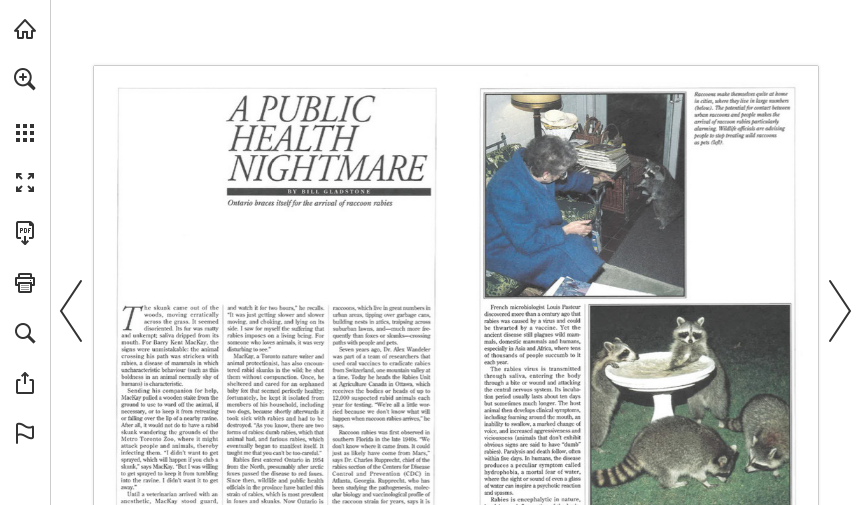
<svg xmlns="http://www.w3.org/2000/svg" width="861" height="505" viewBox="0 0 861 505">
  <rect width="100%" height="100%" fill="#fff"/>
  <path d="M1 0h50v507H1z" fill="#00000033" filter="blur(0.5px)"/>
  <path d="M0 0h50v505H0z" fill="#fff"/>
  <image x="14" y="19" width="22" height="20" href="img/1.png"/>
  <image x="14" y="68" width="22" height="23" href="img/2.png"/>
  <image x="16" y="124" width="18" height="18" href="img/3.png"/>
  <image x="16" y="173" width="18" height="19" href="img/4.png"/>
  <image x="16" y="221" width="18" height="24" href="img/5.png"/>
  <image x="15" y="273" width="20" height="20" href="img/6.png"/>
  <image x="15" y="323" width="21" height="21" href="img/7.png"/>
  <image x="16" y="372" width="18" height="22" href="img/8.png"/>
  <image x="16" y="422" width="18" height="22" href="img/9.png"/>
  <rect x="92" y="64" width="728" height="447" rx="3" fill="#1212120d" filter="blur(1px)"/>
  <rect x="93.5" y="65.5" width="725" height="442" rx="1.5" fill="#fff" stroke="#ccc"/>
  <image x="59" y="280" width="23" height="62" href="img/10.png"/>
  <image x="94" y="66" width="344" height="439" href="img/11.png"/>
  <image x="476" y="66" width="342" height="439" href="img/12.png"/>
  <image x="115" y="87" width="322" height="418" href="img/13.png"/>
  <image x="476" y="84" width="324" height="421" href="img/14.png"/>
  <image x="829" y="280" width="23" height="62" href="img/15.png"/>
</svg>
